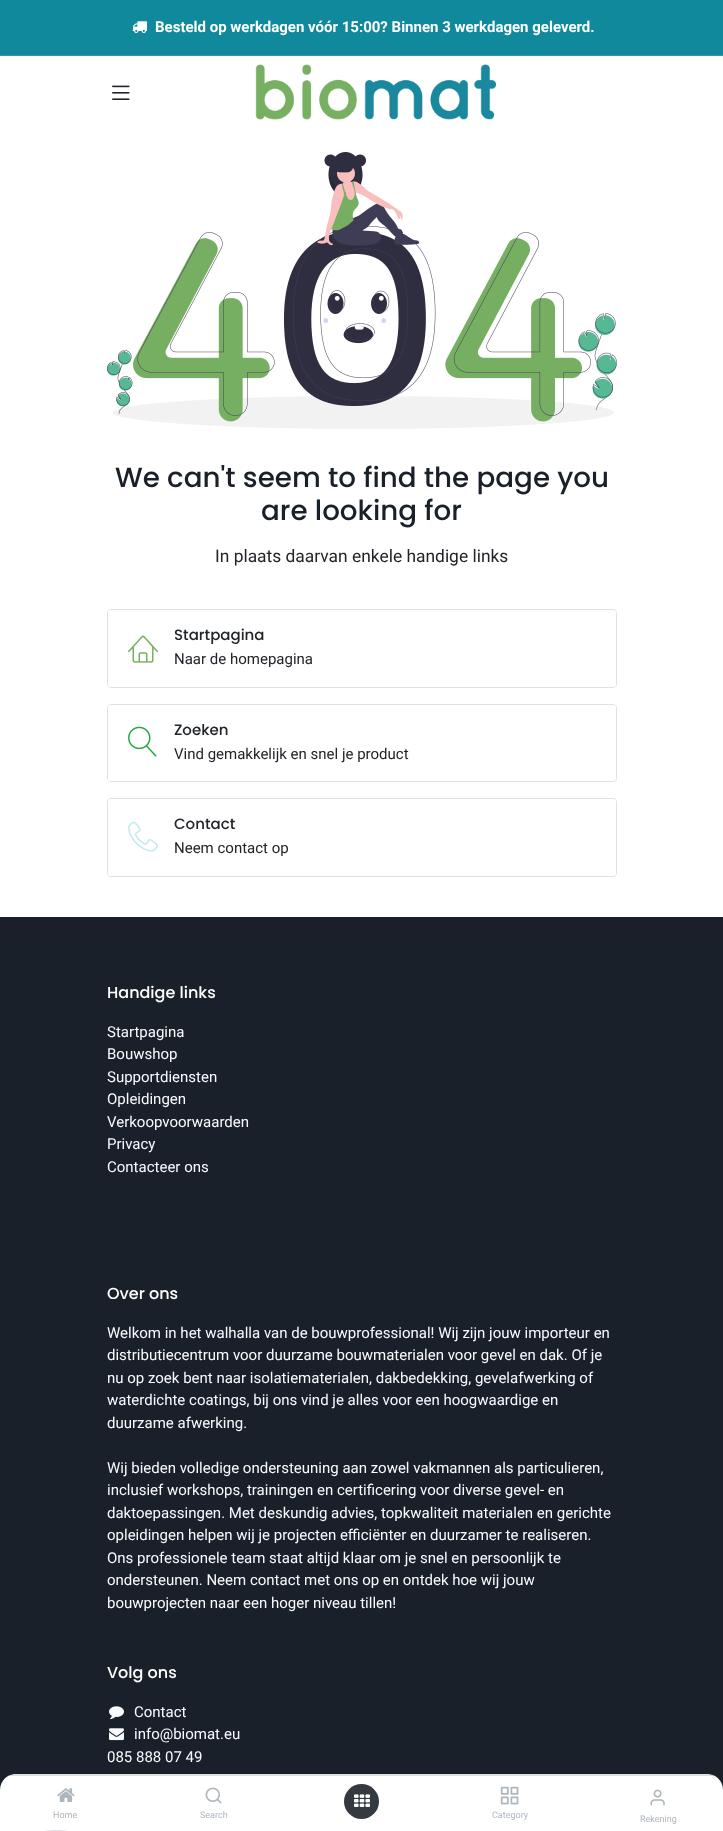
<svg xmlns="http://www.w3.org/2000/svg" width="723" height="1831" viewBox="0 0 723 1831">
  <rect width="100%" height="100%" fill="#fff"/>
  <path d="M0 0h723v55H0z" fill="#11899c"/>
  <path d="M0 55h723v1H0z" fill="#2e97a8"/>
  <image x="132" y="21" width="15" height="13" href="img/1.png"/>
  <image x="112" y="85" width="18" height="15" href="img/2.png"/>
  <image x="255" y="64" width="241" height="56" href="img/3.png"/>
  <image x="107" y="152" width="510" height="277" href="img/4.png"/>
  <rect x="107.5" y="609.5" width="509" height="78" rx="3.5" fill="none" stroke="#dee2e6"/>
  <rect x="108" y="610" width="508" height="77" rx="3" fill="#ffffffe6"/>
  <image x="128" y="635" width="30" height="28" href="img/5.png"/>
  <rect x="107.5" y="704.5" width="509" height="77" rx="3.5" fill="none" stroke="#dee2e6"/>
  <rect x="108" y="705" width="508" height="76" rx="3" fill="#ffffffe6"/>
  <image x="128" y="726" width="29" height="31" href="img/6.png"/>
  <rect x="107.5" y="798.5" width="509" height="78" rx="3.5" fill="none" stroke="#dee2e6"/>
  <rect x="108" y="799" width="508" height="77" rx="3" fill="#ffffffe6"/>
  <image x="128" y="821" width="30" height="31" href="img/7.png"/>
  <path d="M0 917h723v873H0z" fill="#192029"/>
  <image x="109" y="1706" width="15" height="14" href="img/8.png"/>
  <image x="109" y="1728" width="15" height="13" href="img/9.png"/>
  <path d="M16 1774H707C716 1774 723 1781 723 1790V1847H0V1790C0 1781 7 1774 16 1774Z" fill="#fff"/>
  <path d="M8 1774h707v2H8z" fill="#21252926"/>
  <image x="57" y="1788" width="18" height="14" href="img/10.png"/>
  <image x="205" y="1787" width="17" height="17" href="img/11.png"/>
  <circle cx="361.5" cy="1801.5" r="17.5" fill="#343a40"/>
  <image x="354" y="1794" width="16" height="13" href="img/12.png"/>
  <image x="500" y="1786" width="19" height="19" href="img/13.png"/>
  <image x="650" y="1789" width="15" height="17" href="img/14.png"/>
  <rect x="15.5" y="1830.5" width="82" height="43" rx="41" fill="none" stroke="#dbdade"/>
  <text x="155" y="32" font-family="Roboto" font-size="15" font-weight="bold" fill="#fff">Besteld op werkdagen vóór 15:00? Binnen 3 werkdagen geleverd.</text>
  <g font-family="Poppins" font-size="27.75" font-weight="500" fill="#192029">
    <text x="115" y="487">We can't seem to find the page you</text>
    <text x="261" y="520">are looking for</text>
  </g>
  <text x="215" y="562" font-family="Roboto" font-size="17.4" fill="#212529">In plaats daarvan enkele handige links</text>
  <text x="174" y="640" font-family="Poppins" font-size="15" font-weight="500" fill="#212529">Startpagina</text>
  <text x="174" y="664" font-family="Roboto" font-size="15" fill="#212529">Naar de homepagina</text>
  <text x="174" y="735" font-family="Poppins" font-size="15" font-weight="500" fill="#212529">Zoeken</text>
  <text x="174" y="759" font-family="Roboto" font-size="15" fill="#212529">Vind gemakkelijk en snel je product</text>
  <text x="174" y="829" font-family="Poppins" font-size="15" font-weight="500" fill="#212529">Contact</text>
  <text x="174" y="853" font-family="Roboto" font-size="15" fill="#212529">Neem contact op</text>
  <text x="107" y="998" font-family="Poppins" font-size="16" font-weight="500" fill="#fff">Handige links</text>
  <g font-family="Roboto" font-size="15" fill="#f9fafe">
    <text x="107" y="1037">Startpagina</text>
    <text x="107" y="1059">Bouwshop</text>
    <text x="107" y="1082">Supportdiensten</text>
    <text x="107" y="1104">Opleidingen</text>
    <text x="107" y="1127">Verkoopvoorwaarden</text>
    <text x="107" y="1149">Privacy</text>
    <text x="107" y="1172">Contacteer ons</text>
  </g>
  <text x="107" y="1299" font-family="Poppins" font-size="16" font-weight="500" fill="#fff">Over ons</text>
  <g font-family="Roboto" font-size="15" fill="#f9fafe">
    <text x="107" y="1338">Welkom in het walhalla van de bouwprofessional! Wij zijn jouw importeur en</text>
    <text x="107" y="1360">distributiecentrum voor duurzame bouwmaterialen voor gevel en dak. Of je</text>
    <text x="107" y="1383">nu op zoek bent naar isolatiematerialen, dakbedekking, gevelafwerking of</text>
    <text x="107" y="1405">waterdichte coatings, bij ons vind je alles voor een hoogwaardige en</text>
    <text x="107" y="1428">duurzame afwerking.</text>
    <text x="107" y="1473">Wij bieden volledige ondersteuning aan zowel vakmannen als particulieren,</text>
    <text x="107" y="1495">inclusief workshops, trainingen en certificering voor diverse gevel- en</text>
    <text x="107" y="1518">daktoepassingen. Met deskundig advies, topkwaliteit materialen en gerichte</text>
    <text x="107" y="1540">opleidingen helpen wij je projecten efficiënter en duurzamer te realiseren.</text>
    <text x="107" y="1563">Ons professionele team staat altijd klaar om je snel en persoonlijk te</text>
    <text x="107" y="1585">ondersteunen. Neem contact met ons op en ontdek hoe wij jouw</text>
    <text x="107" y="1608">bouwprojecten naar een hoger niveau tillen!</text>
  </g>
  <text x="107" y="1678" font-family="Poppins" font-size="16" font-weight="500" fill="#fff">Volg ons</text>
  <g font-family="Roboto" font-size="15" fill="#f9fafe">
    <text x="134" y="1717">Contact</text>
    <text x="134" y="1739">info@biomat.eu</text>
    <text x="107" y="1762">085 888 07 49</text>
  </g>
  <g font-family="Roboto" font-size="9" fill="#adb5bd">
    <text x="53" y="1818">Home</text>
    <text x="200" y="1818">Search</text>
    <text x="492" y="1818">Category</text>
    <text x="640" y="1822">Rekening</text>
  </g>
</svg>
